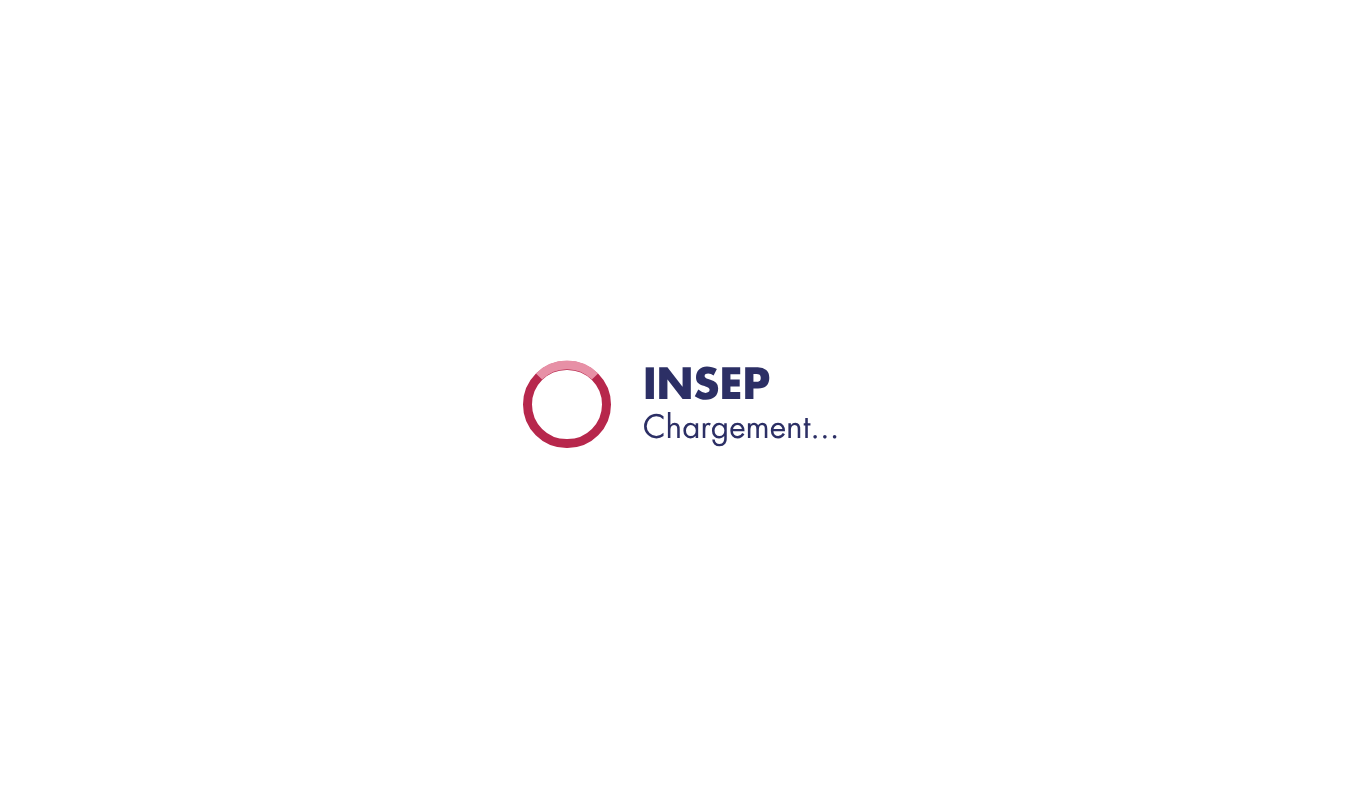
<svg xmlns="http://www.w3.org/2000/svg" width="1362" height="807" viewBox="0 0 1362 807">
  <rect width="100%" height="100%" fill="#fff"/>
  <rect x="527.5" y="365.5" width="79" height="78" rx="39" fill="none" stroke="#b7274c" stroke-width="9"/>
  <path d="M539 376.5C554.5 361 579.5 361 595 376.5" fill="none" stroke="#e790a6" stroke-width="8.8"/>
  <text x="643" y="399" font-family="Futura" font-size="42" font-weight="bold" fill="#2c2f65">INSEP</text>
  <text x="643" y="438" font-family="Futura" font-size="31.5" fill="#2c2f65">Chargement...</text>
</svg>
